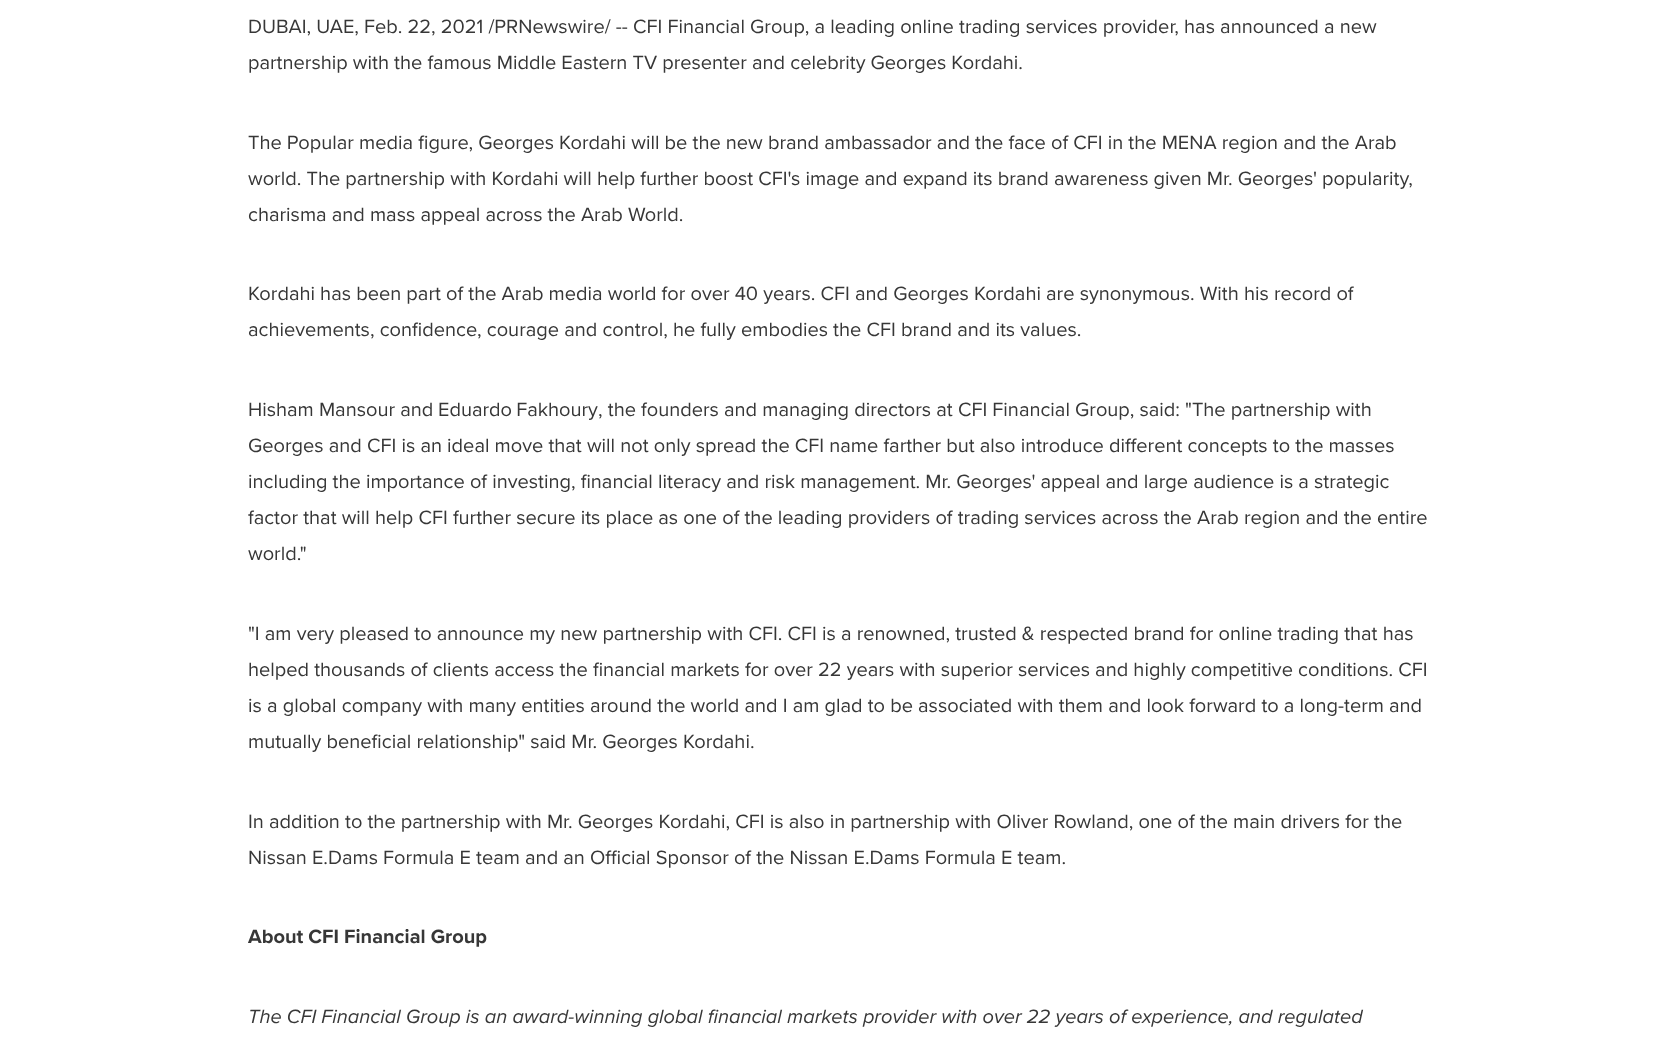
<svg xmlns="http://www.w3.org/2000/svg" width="1676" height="1042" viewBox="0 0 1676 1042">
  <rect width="100%" height="100%" fill="#fff"/>
  <g font-family="Proxima Nova" font-size="20" fill="#373737">
    <text x="248" y="33">DUBAI, UAE, Feb. 22, 2021 /PRNewswire/ -- CFI Financial Group, a leading online trading services provider, has announced a new</text>
    <text x="248" y="69">partnership with the famous Middle Eastern TV presenter and celebrity Georges Kordahi.</text>
    <text x="248" y="149">The Popular media figure, Georges Kordahi will be the new brand ambassador and the face of CFI in the MENA region and the Arab</text>
    <text x="248" y="185">world. The partnership with Kordahi will help further boost CFI's image and expand its brand awareness given Mr. Georges' popularity,</text>
    <text x="248" y="221">charisma and mass appeal across the Arab World.</text>
    <text x="248" y="300">Kordahi has been part of the Arab media world for over 40 years. CFI and Georges Kordahi are synonymous. With his record of</text>
    <text x="248" y="336">achievements, confidence, courage and control, he fully embodies the CFI brand and its values.</text>
    <text x="248" y="416">Hisham Mansour and</text>
    <text x="438" y="416" word-spacing="-1">Eduardo Fakhoury</text>
    <text x="598" y="416">, the founders and managing directors at CFI Financial Group, said: "The partnership with</text>
    <text x="248" y="452">Georges and CFI is an ideal move that will not only spread the CFI name farther but also introduce different concepts to the masses</text>
    <text x="248" y="488">including the importance of investing, financial literacy and risk management. Mr. Georges' appeal and large audience is a strategic</text>
    <text x="248" y="524">factor that will help CFI further secure its place as one of the leading providers of trading services across the Arab region and the entire</text>
    <text x="248" y="560">world."</text>
    <text x="248" y="640">"I am very pleased to announce my new partnership with CFI. CFI is a renowned, trusted &amp; respected brand for online trading that has</text>
    <text x="248" y="676">helped thousands of clients access the financial markets for over 22 years with superior services and highly competitive conditions. CFI</text>
    <text x="248" y="712">is a global company with many entities around the world and I am glad to be associated with them and look forward to a long-term and</text>
    <text x="248" y="748">mutually beneficial relationship" said Mr. Georges Kordahi.</text>
    <text x="248" y="828">In addition to the partnership with Mr. Georges Kordahi, CFI is also in partnership with Oliver Rowland, one of the main drivers for the</text>
    <text x="248" y="864">Nissan E.Dams Formula E team and an Official Sponsor of the Nissan E.Dams Formula E team.</text>
  </g>
  <text x="248" y="943" font-family="Proxima Nova" font-size="20" font-weight="bold" fill="#373737">About CFI Financial Group</text>
  <text x="248" y="1023" font-family="Proxima Nova" font-size="20" font-style="italic" fill="#373737">The CFI Financial Group is an award-winning global financial markets provider with over 22 years of experience, and regulated</text>
</svg>
